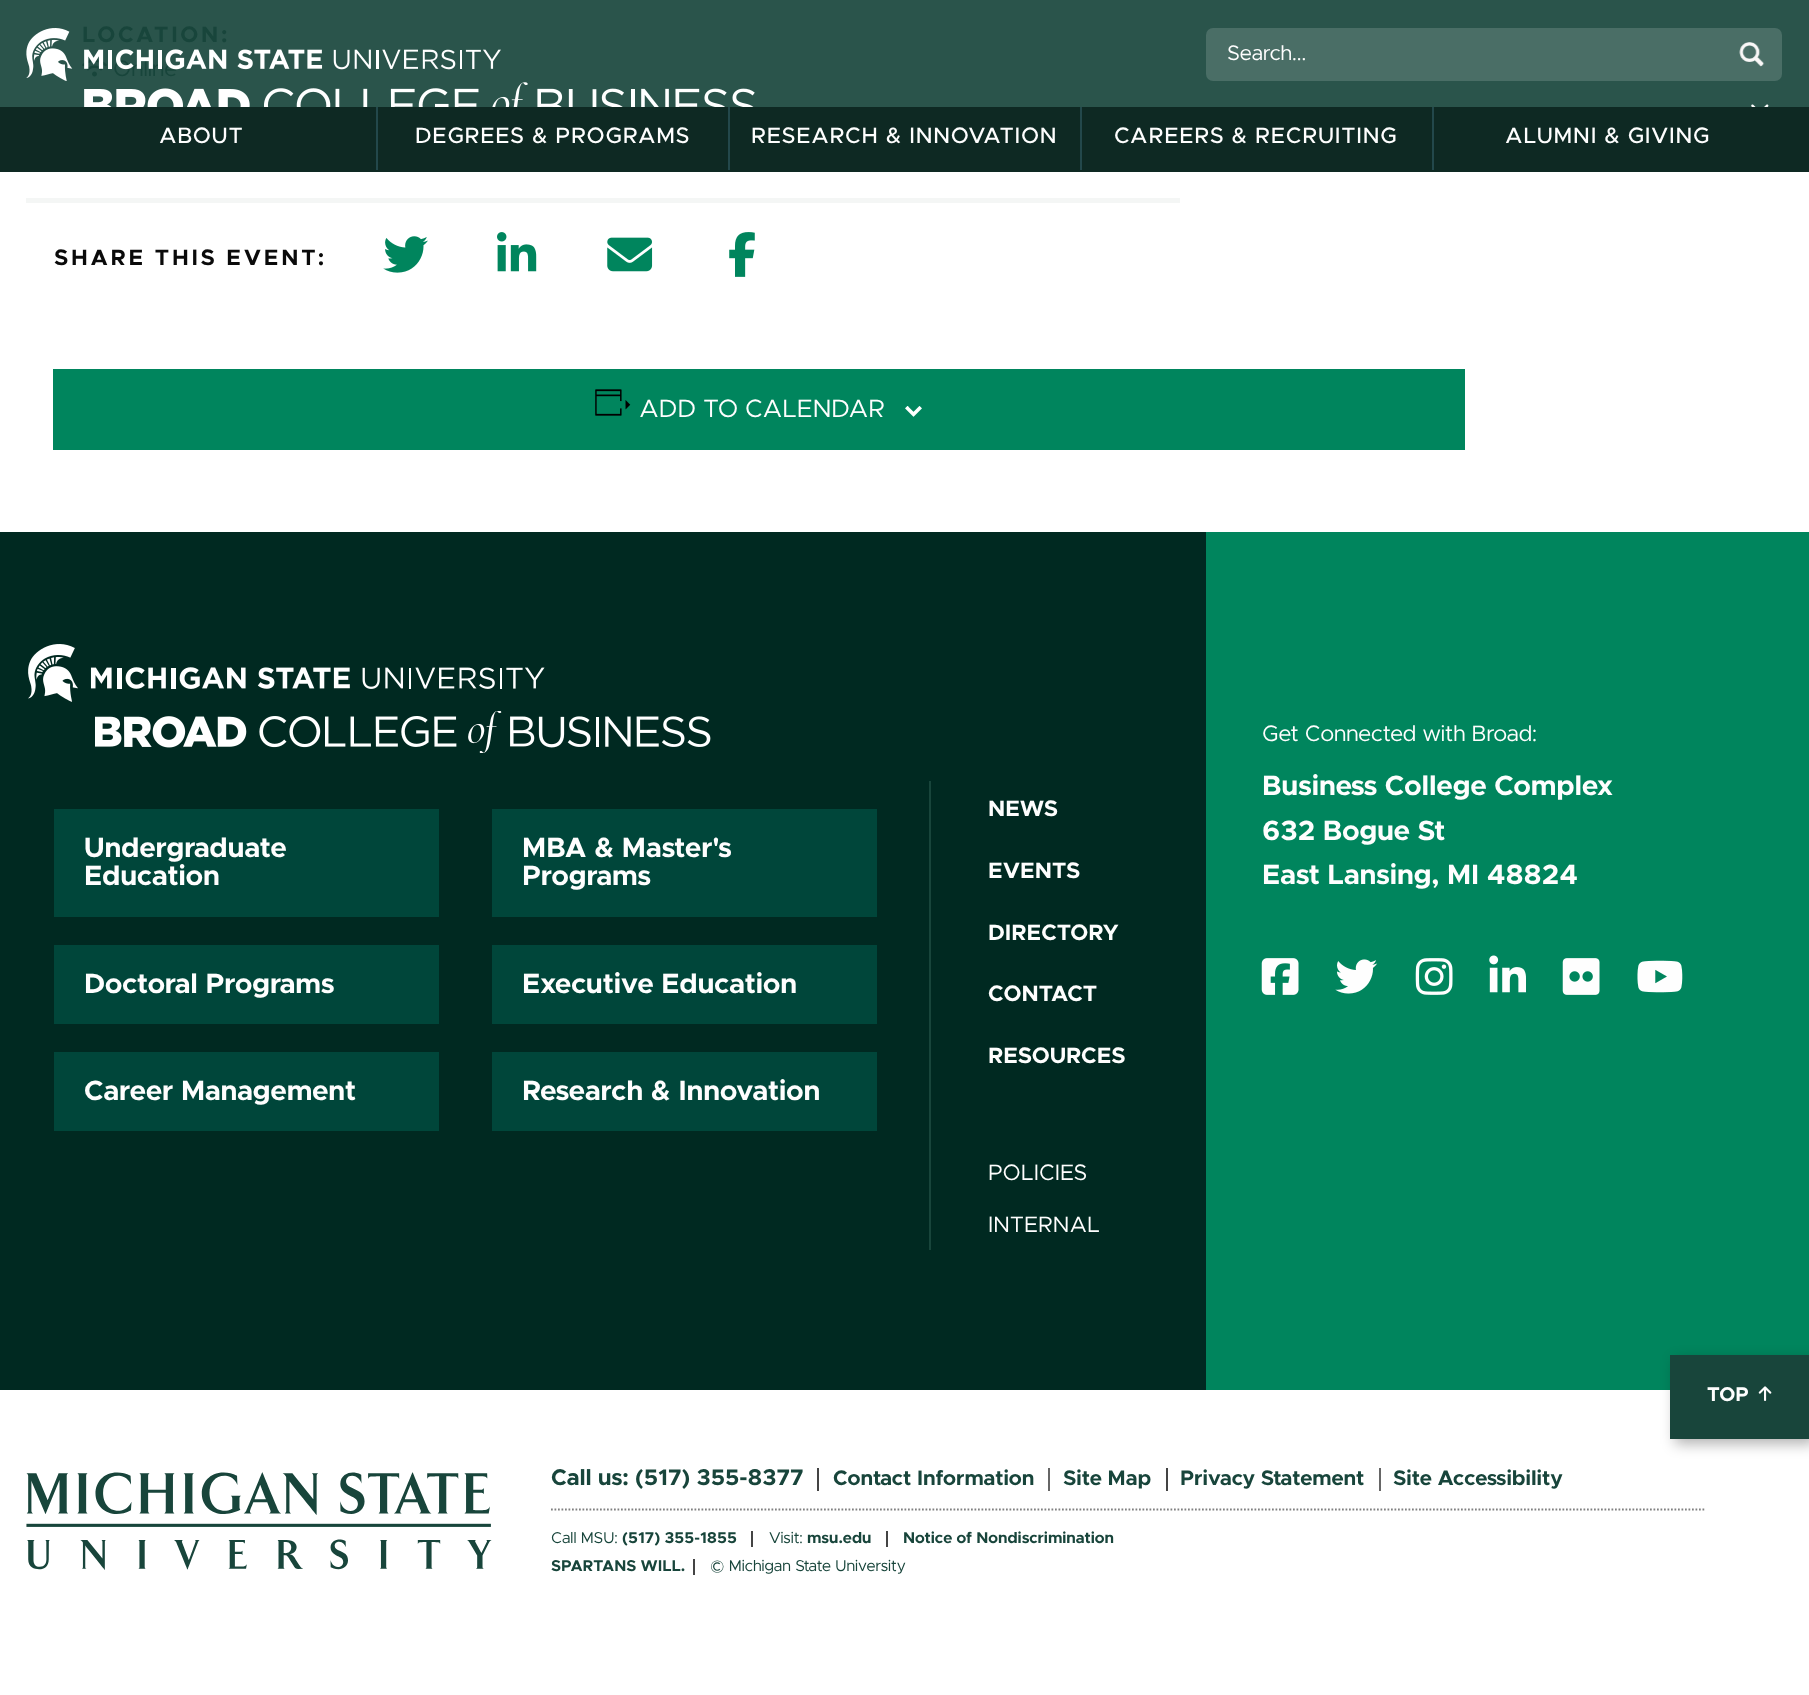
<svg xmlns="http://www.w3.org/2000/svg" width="1809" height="1695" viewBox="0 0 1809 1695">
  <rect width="100%" height="100%" fill="#fff"/>
  <path d="M0 0h1809v107H0z" fill="#2a544b"/>
  <image x="82" y="59" width="25" height="18" href="img/1.png"/>
  <path d="M26 198h1154v5H26z" fill="#f4f6f5"/>
  <image x="383" y="236" width="45" height="37" href="img/2.png"/>
  <image x="497" y="232" width="40" height="40" href="img/3.png"/>
  <image x="607" y="237" width="46" height="35" href="img/4.png"/>
  <image x="729" y="232" width="26" height="45" href="img/5.png"/>
  <path d="M53 369h1412v81H53z" fill="#00855d"/>
  <image x="595" y="389" width="36" height="27" href="img/6.png"/>
  <image x="905" y="406" width="17" height="11" href="img/7.png"/>
  <rect x="1206" y="28" width="576" height="53" rx="7" fill="#4a6e66"/>
  <image x="1739" y="42" width="26" height="25" href="img/9.png"/>
  <image x="84" y="82" width="671" height="25" href="img/10.png"/>
  <image x="1751" y="104" width="18" height="3" href="img/11.png"/>
  <path d="M0 107h1809v65H0z" fill="#0e2923"/>
  <path d="M376 107h2v63H376z" fill="#23484b"/>
  <path d="M728 107h2v63H728z" fill="#23484b"/>
  <path d="M1080 107h2v63H1080z" fill="#23484b"/>
  <path d="M1432 107h2v63H1432z" fill="#23484b"/>
  <path d="M0 532h1206v858H0z" fill="#002921"/>
  <image x="28" y="644" width="517" height="58" href="img/12.png"/>
  <image x="95" y="711" width="616" height="42" href="img/13.png"/>
  <path d="M54 809h385v108H54z" fill="#00463a"/>
  <path d="M492 809h385v108H492z" fill="#00463a"/>
  <path d="M54 945h385v79H54z" fill="#00463a"/>
  <path d="M492 945h385v79H492z" fill="#00463a"/>
  <path d="M54 1052h385v79H54z" fill="#00463a"/>
  <path d="M492 1052h385v79H492z" fill="#00463a"/>
  <path d="M929 781h2v469H929z" fill="#18453b"/>
  <path d="M1206 532h603v858H1206z" fill="#00855d"/>
  <image x="1261" y="958" width="38" height="37" href="img/14.png"/>
  <image x="1335" y="959" width="43" height="35" href="img/15.png"/>
  <image x="1415" y="958" width="38" height="37" href="img/16.png"/>
  <image x="1489" y="955" width="37" height="38" href="img/17.png"/>
  <image x="1562" y="958" width="38" height="37" href="img/18.png"/>
  <image x="1637" y="960" width="46" height="33" href="img/19.png"/>
  <path d="M1675 1360h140v84H1675z" fill="#0000004d" filter="blur(7px)"/>
  <path d="M1670 1355h139v84H1670z" fill="#18453b"/>
  <image x="1758" y="1386" width="14" height="15" href="img/20.png"/>
  <image x="26" y="1472" width="466" height="98" href="img/21.png"/>
  <path d="M551 1509.5H1706" fill="none" stroke="#808080" stroke-width="1.8" stroke-dasharray="1.75 1.75"/>
  <path d="M817 1468h2v23H817z" fill="#444"/>
  <path d="M1048 1468h2v23H1048z" fill="#666"/>
  <path d="M1166 1468h2v23H1166z" fill="#444"/>
  <path d="M1379 1468h2v23H1379z" fill="#666"/>
  <path d="M751 1531h2v16H751z" fill="#444"/>
  <path d="M886 1531h2v16H886z" fill="#444"/>
  <path d="M693 1559h2v16H693z" fill="#444"/>
  <text x="82" y="42" font-family="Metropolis" font-size="22.4" font-weight="bold" letter-spacing="2.75" fill="#18453b">LOCATION:</text>
  <text x="113" y="76" font-family="Metropolis" font-size="22.4" fill="#18453b">Online</text>
  <text x="54" y="265" font-family="Metropolis" font-size="22.4" font-weight="bold" letter-spacing="2.75" fill="#0a0a0a">SHARE THIS EVENT:</text>
  <text x="639" y="417" font-family="Metropolis" font-size="25.25" fill="#fefefe">ADD TO CALENDAR</text>
  <image x="26" y="28" width="475" height="53" href="img/8.png"/>
  <text x="1227" y="60" font-family="Metropolis" font-size="21" fill="#fefefe">Search...</text>
  <g font-family="Metropolis" font-size="22.4" font-weight="500" letter-spacing="0.8" fill="#fefefe">
    <text x="159" y="143">ABOUT</text>
    <text x="415" y="143">DEGREES &amp; PROGRAMS</text>
    <text x="751" y="143">RESEARCH &amp; INNOVATION</text>
    <text x="1114" y="143">CAREERS &amp; RECRUITING</text>
    <text x="1505" y="143">ALUMNI &amp; GIVING</text>
  </g>
  <g font-family="Metropolis" font-size="28" font-weight="bold" fill="#fefefe">
    <text x="84" y="857">Undergraduate</text>
    <text x="84" y="885">Education</text>
    <text x="522" y="857">MBA &amp; Master's</text>
    <text x="522" y="885">Programs</text>
    <text x="84" y="993">Doctoral Programs</text>
    <text x="522" y="993">Executive Education</text>
    <text x="84" y="1100">Career Management</text>
    <text x="522" y="1100">Research &amp; Innovation</text>
  </g>
  <g font-family="Metropolis" font-size="22.4" font-weight="bold" fill="#fefefe">
    <text x="988" y="816">NEWS</text>
    <text x="988" y="878">EVENTS</text>
    <text x="988" y="940">DIRECTORY</text>
    <text x="988" y="1001">CONTACT</text>
    <text x="988" y="1063">RESOURCES</text>
  </g>
  <g font-family="Metropolis" font-size="22.4" fill="#fefefe">
    <text x="988" y="1180">POLICIES</text>
    <text x="988" y="1232">INTERNAL</text>
    <text x="1262" y="741">Get Connected with Broad:</text>
  </g>
  <g font-family="Metropolis" font-size="28" font-weight="bold" fill="#fefefe">
    <text x="1262" y="795">Business College Complex</text>
    <text x="1262" y="840">632 Bogue St</text>
    <text x="1262" y="884">East Lansing, MI 48824</text>
  </g>
  <text x="1707" y="1401" font-family="Metropolis" font-size="20" font-weight="bold" fill="#fefefe">TOP</text>
  <text x="551" y="1485" font-family="Metropolis" font-size="22.75" font-weight="bold" fill="#18453b">Call us: (517) 355-8377</text>
  <g font-family="Metropolis" font-size="21" font-weight="bold" fill="#18453b">
    <text x="833" y="1485">Contact Information</text>
    <text x="1063" y="1485">Site Map</text>
    <text x="1180" y="1485">Privacy Statement</text>
    <text x="1393" y="1485">Site Accessibility</text>
  </g>
  <text x="551" y="1543" font-family="Metropolis" font-size="15.75" fill="#18453b">Call MSU:</text>
  <text x="622" y="1543" font-family="Metropolis" font-size="15.75" font-weight="bold" fill="#18453b">(517) 355-1855</text>
  <text x="769" y="1543" font-family="Metropolis" font-size="15.75" fill="#18453b">Visit:</text>
  <g font-family="Metropolis" font-size="15.75" font-weight="bold" fill="#18453b">
    <text x="807" y="1543">msu.edu</text>
    <text x="903" y="1543">Notice of Nondiscrimination</text>
    <text x="551" y="1571">SPARTANS WILL.</text>
  </g>
  <text x="710" y="1571" font-family="Metropolis" font-size="15.75" fill="#18453b">© Michigan State University</text>
</svg>
